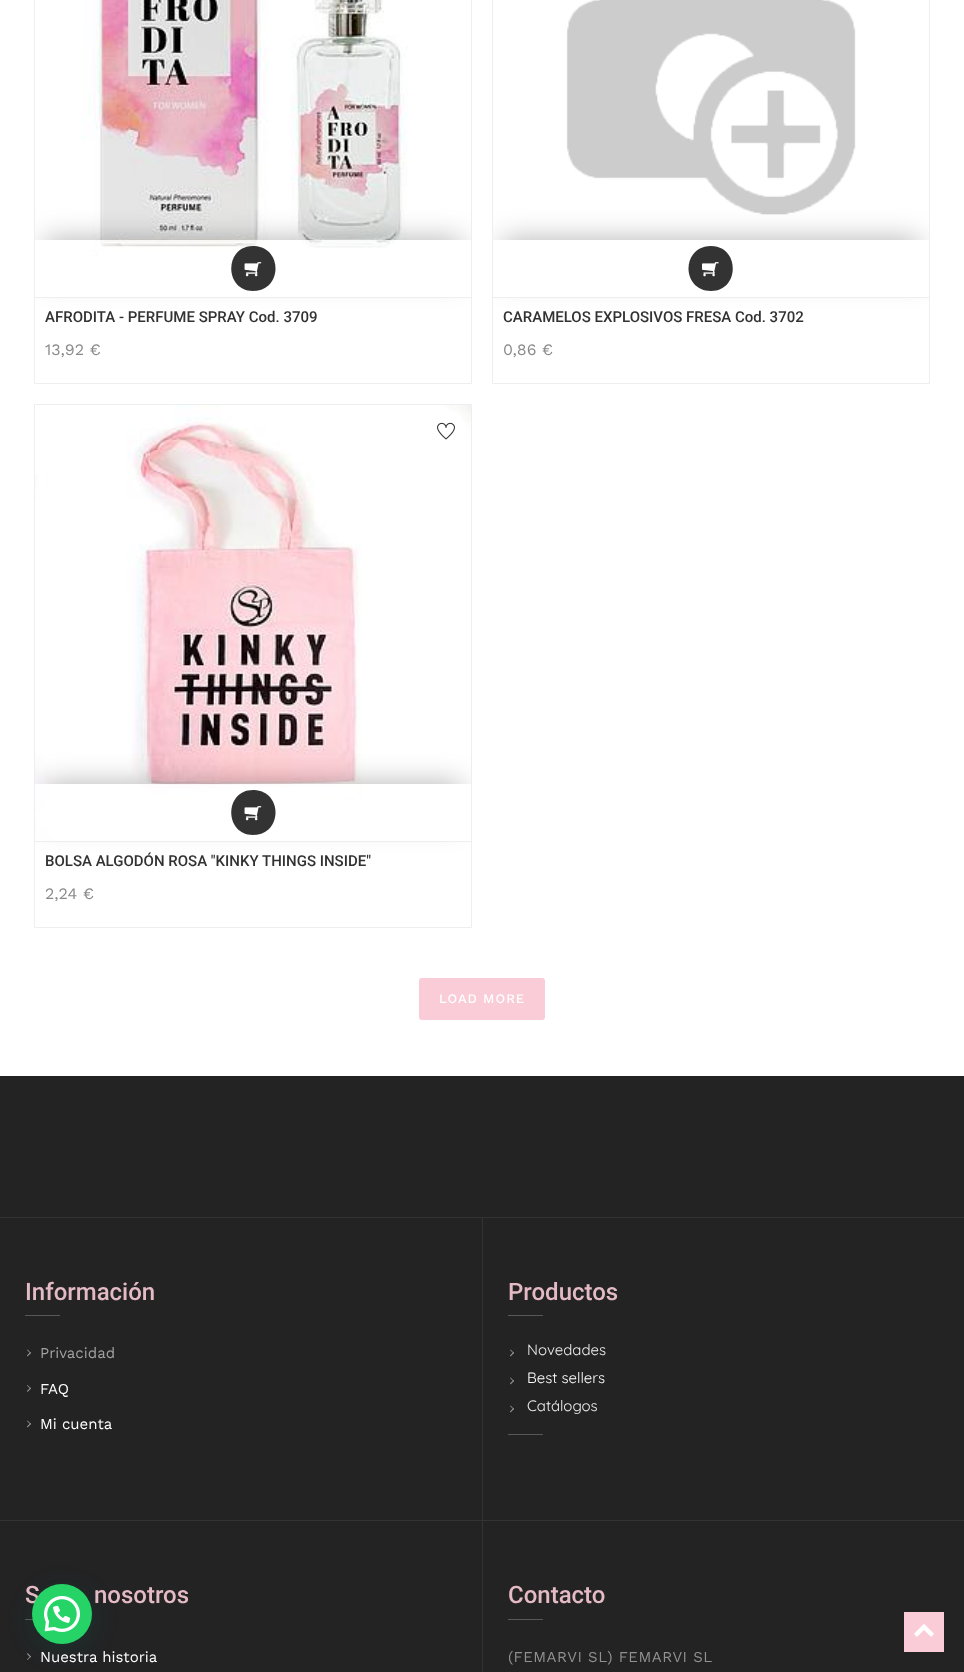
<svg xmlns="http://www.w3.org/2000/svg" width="964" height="1672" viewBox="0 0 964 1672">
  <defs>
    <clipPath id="clip1"><path d="M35 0h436v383H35z"/></clipPath>
    <clipPath id="clip2"><path d="M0 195H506V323H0ZM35 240H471V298H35Z" clip-rule="evenodd"/></clipPath>
    <clipPath id="clip3"><path d="M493 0h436v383H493z"/></clipPath>
    <clipPath id="clip4"><path d="M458 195H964V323H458ZM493 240H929V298H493Z" clip-rule="evenodd"/></clipPath>
    <clipPath id="clip5"><path d="M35 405h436v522H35z"/></clipPath>
    <clipPath id="clip6"><path d="M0 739H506V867H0ZM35 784H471V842H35Z" clip-rule="evenodd"/></clipPath>
  </defs>
  <rect width="100%" height="100%" fill="#fff"/>
  <path d="M34.5 -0.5h437v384H34.5z" fill="none" stroke="#eee"/>
  <image x="81" y="0" width="327" height="256" href="img/1.png"/>
  <g clip-path="url(#clip1)">
    <g clip-path="url(#clip2)">
      <path d="M45 240h416v38H45z" fill="#0000004d" filter="blur(14.5px)"/>
    </g>
  </g>
  <path d="M98 240h308v16H98z" fill="#ffffffb3"/>
  <path d="M35 297h436v1H35z" fill="#eee"/>
  <path d="M253 246C224 246 224 291 253 291C283 291 283 246 253 246Z" fill="#333"/>
  <image x="244" y="262" width="18" height="15" href="img/2.png"/>
  <path d="M492.5 -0.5h437v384H492.5z" fill="none" stroke="#eee"/>
  <image x="566" y="0" width="290" height="215" href="img/3.png"/>
  <g clip-path="url(#clip3)">
    <g clip-path="url(#clip4)">
      <path d="M503 240h416v38H503z" fill="#0000004d" filter="blur(14.5px)"/>
    </g>
  </g>
  <path d="M493 297h436v1H493z" fill="#eee"/>
  <path d="M711 246C681 246 681 291 711 291C740 291 740 246 711 246Z" fill="#333"/>
  <image x="702" y="262" width="17" height="15" href="img/4.png"/>
  <path d="M34.5 404.5h437v523H34.5z" fill="none" stroke="#eee"/>
  <image x="35" y="405" width="436" height="436" href="img/5.png"/>
  <circle cx="446" cy="430" r="20" fill="#fff"/>
  <image x="437" y="422" width="18" height="18" href="img/6.png"/>
  <g clip-path="url(#clip5)">
    <g clip-path="url(#clip6)">
      <path d="M45 784h416v38H45z" fill="#0000004d" filter="blur(14.5px)"/>
    </g>
  </g>
  <path d="M35 784h325v57H35z" fill="#ffffffb3"/>
  <path d="M35 841h436v1H35z" fill="#eee"/>
  <path d="M253 790C224 790 224 835 253 835C283 835 283 790 253 790Z" fill="#333"/>
  <image x="244" y="806" width="18" height="15" href="img/2.png"/>
  <rect x="419" y="978" width="126" height="42" rx="3" fill="#f9ccd7"/>
  <path d="M0 1076h964v141H0z" fill="#232324"/>
  <path d="M0 1217h964v1H0z" fill="#333"/>
  <path d="M0 1218h964v454H0z" fill="#232324"/>
  <path d="M0 1520h964v1H0z" fill="#333"/>
  <path d="M25 1315h35v1H25z" fill="#585858"/>
  <path d="M27.5 1349.5L31 1353L30.5 1353.5L27 1350Z" fill="#9c9c9c"/>
  <path d="M30.5 1352L31 1353L27.5 1356.5L27 1355.5Z" fill="#9c9c9c"/>
  <path d="M27.5 1385L31 1388.5L30.5 1389L27 1385.5Z" fill="#9c9c9c"/>
  <path d="M30.5 1387.5L31 1388.5L27.5 1392L27 1391Z" fill="#9c9c9c"/>
  <path d="M27.5 1420.5L31 1424L30.5 1424.5L27 1421Z" fill="#9c9c9c"/>
  <path d="M30.5 1423L31 1424L27.5 1427.5L27 1426.5Z" fill="#9c9c9c"/>
  <path d="M482 1218h1v454H482z" fill="#333"/>
  <path d="M508 1315h35v1H508z" fill="#585858"/>
  <path d="M510.5 1349.5L514 1353L513.5 1353.5L510 1350Z" fill="#9c9c9c"/>
  <path d="M513.5 1352L514 1353L510.5 1356.5L510 1355.5Z" fill="#9c9c9c"/>
  <path d="M510.5 1377.5L514 1381L513.5 1381.5L510 1378Z" fill="#9c9c9c"/>
  <path d="M513.5 1380L514 1381L510.5 1384.5L510 1383.5Z" fill="#9c9c9c"/>
  <path d="M510.5 1405.5L514 1409L513.5 1409.5L510 1406Z" fill="#9c9c9c"/>
  <path d="M513.5 1408L514 1409L510.5 1412.5L510 1411.5Z" fill="#9c9c9c"/>
  <path d="M508 1434h35v1H508z" fill="#585858"/>
  <path d="M25 1619h8v1H25z" fill="#585858"/>
  <path d="M27.5 1653L31 1656.5L30.5 1657.5L27 1654Z" fill="#9c9c9c"/>
  <path d="M30.5 1656L31 1656.5L27.5 1660L27 1659.5Z" fill="#9c9c9c"/>
  <path d="M508 1619h35v1H508z" fill="#585858"/>
  <rect x="33" y="1590" width="60" height="60" rx="30" fill="#075e543d" filter="blur(12px)"/>
  <path d="M904 1612h40v40H904z" fill="#f9ccd7"/>
  <image x="914" y="1624" width="20" height="13" href="img/8.png"/>
  <text x="45" y="322" font-family="Roboto" font-size="15" font-weight="500" fill="#323232">AFRODITA - PERFUME SPRAY Cod. 3709</text>
  <text x="45" y="355" font-family="Work Sans" font-size="16" fill="#8a8a8a">13,92 €</text>
  <text x="503" y="322" font-family="Roboto" font-size="15" font-weight="500" fill="#323232">CARAMELOS EXPLOSIVOS FRESA Cod. 3702</text>
  <text x="503" y="355" font-family="Work Sans" font-size="16" fill="#8a8a8a">0,86 €</text>
  <text x="45" y="866" font-family="Roboto" font-size="15" font-weight="500" fill="#323232">BOLSA ALGODÓN ROSA "KINKY THINGS INSIDE"</text>
  <text x="45" y="899" font-family="Work Sans" font-size="16" fill="#8a8a8a">2,24 €</text>
  <text x="439" y="1003" font-family="Work Sans" font-size="13" font-weight="500" letter-spacing="1" fill="#fff">LOAD MORE</text>
  <text x="25" y="1300" font-family="Roboto" font-size="24" font-weight="500" fill="#e4bbc5">Información</text>
  <text x="40" y="1358" font-family="Work Sans" font-size="15" fill="#a2a2a2">Privacidad</text>
  <g font-family="Work Sans" font-size="15" fill="#fff">
    <text x="40" y="1394">FAQ</text>
    <text x="40" y="1429">Mi cuenta</text>
  </g>
  <text x="508" y="1300" font-family="Roboto" font-size="24" font-weight="500" fill="#e4bbc5">Productos</text>
  <text x="527" y="1355" font-family="Quicksand" font-size="15" fill="#efefef">Novedades</text>
  <text x="527" y="1383" font-family="Quicksand" font-size="15" fill="#fff">Best sellers</text>
  <text x="527" y="1411" font-family="Quicksand" font-size="15" fill="#efefef">Catálogos</text>
  <g font-family="Roboto" font-size="24" font-weight="500" fill="#e4bbc5">
    <text x="25" y="1603">S</text>
    <text x="94" y="1603">nosotros</text>
  </g>
  <text x="40" y="1662" font-family="Work Sans" font-size="15" fill="#fff">Nuestra historia</text>
  <text x="508" y="1603" font-family="Roboto" font-size="24" font-weight="500" fill="#e4bbc5">Contacto</text>
  <text x="508" y="1662" font-family="Work Sans" font-size="15" letter-spacing="0.5" fill="#919192">(FEMARVI SL) FEMARVI SL</text>
  <circle cx="62" cy="1614" r="30" fill="#25d366"/>
  <image x="44" y="1596" width="36" height="36" href="img/7.png"/>
</svg>
